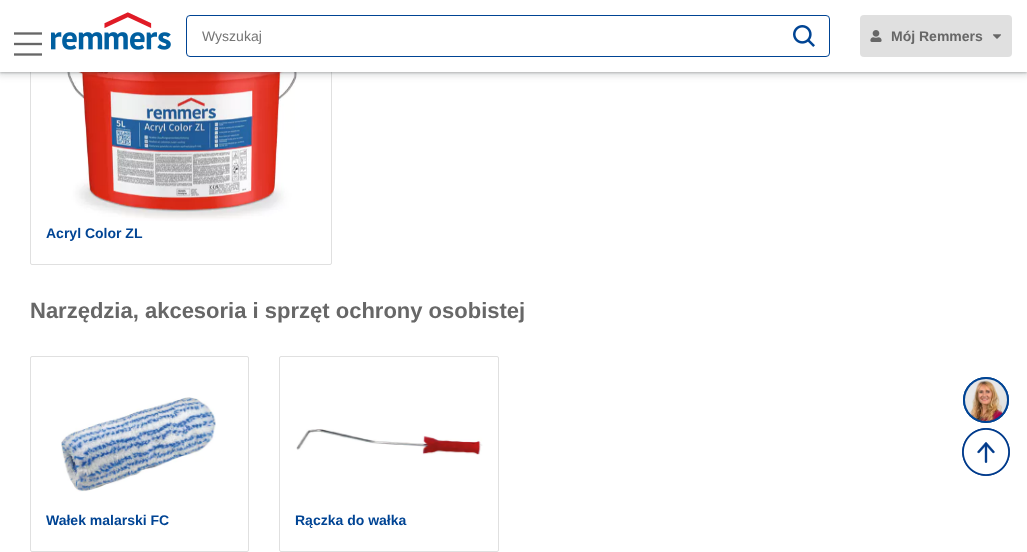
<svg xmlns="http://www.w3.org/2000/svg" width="1027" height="552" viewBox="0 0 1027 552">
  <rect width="100%" height="100%" fill="#fff"/>
  <rect x="30.5" y="7.5" width="301" height="257" rx="1.5" fill="none" stroke="#e0e0e0"/>
  <image x="66" y="72" width="231" height="149" href="img/6.png"/>
  <path d="M-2 0h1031v76H-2z" fill="#3c404326" filter="blur(3px)"/>
  <path d="M0 1h1027v72H0z" fill="#3c40434d" filter="blur(1px)"/>
  <path d="M0 0h1027v72H0z" fill="#fff"/>
  <image x="14" y="32" width="28" height="24" href="img/1.png"/>
  <image x="51" y="12" width="120" height="38" href="img/2.png"/>
  <rect x="186.5" y="15.5" width="643" height="41" rx="3.5" fill="none" stroke="#004494"/>
  <image x="793" y="25" width="22" height="22" href="img/3.png"/>
  <rect x="860" y="15" width="152" height="42" rx="4" fill="#e0e0e0"/>
  <image x="870" y="30" width="12" height="12" href="img/4.png"/>
  <image x="993" y="34" width="8" height="5" href="img/5.png"/>
  <rect x="30.5" y="356.5" width="218" height="195" rx="1.5" fill="none" stroke="#e0e0e0"/>
  <image x="61" y="397" width="155" height="95" href="img/7.png"/>
  <rect x="279.5" y="356.5" width="219" height="195" rx="1.5" fill="none" stroke="#e0e0e0"/>
  <image x="296" y="429" width="187" height="26" href="img/8.png"/>
  <rect x="963" y="377" width="46" height="46" rx="23" fill="#004494" filter="blur(0.5px)"/>
  <circle cx="986" cy="400" r="22" fill="none" stroke="#004494" stroke-width="2"/>
  <image x="965" y="379" width="42" height="42" href="img/9.png"/>
  <image x="962" y="428" width="48" height="48" href="img/10.png"/>
  <image x="962" y="428" width="48" height="48" href="img/11.png"/>
  <text x="202" y="41" font-family="Liberation Sans" font-size="14" fill="#757575">Wyszukaj</text>
  <text x="891" y="41" font-family="Liberation Sans" font-size="14" font-weight="bold" fill="#676767">Mój Remmers</text>
  <text x="46" y="238" font-family="Liberation Sans" font-size="14" font-weight="bold" fill="#004494">Acryl Color ZL</text>
  <text x="30" y="318" font-family="Liberation Sans" font-size="22" font-weight="bold" fill="#676767">Narzędzia, akcesoria i sprzęt ochrony osobistej</text>
  <g font-family="Liberation Sans" font-size="14" font-weight="bold" fill="#004494">
    <text x="46" y="525">Wałek malarski FC</text>
    <text x="295" y="525">Rączka do wałka</text>
  </g>
</svg>
